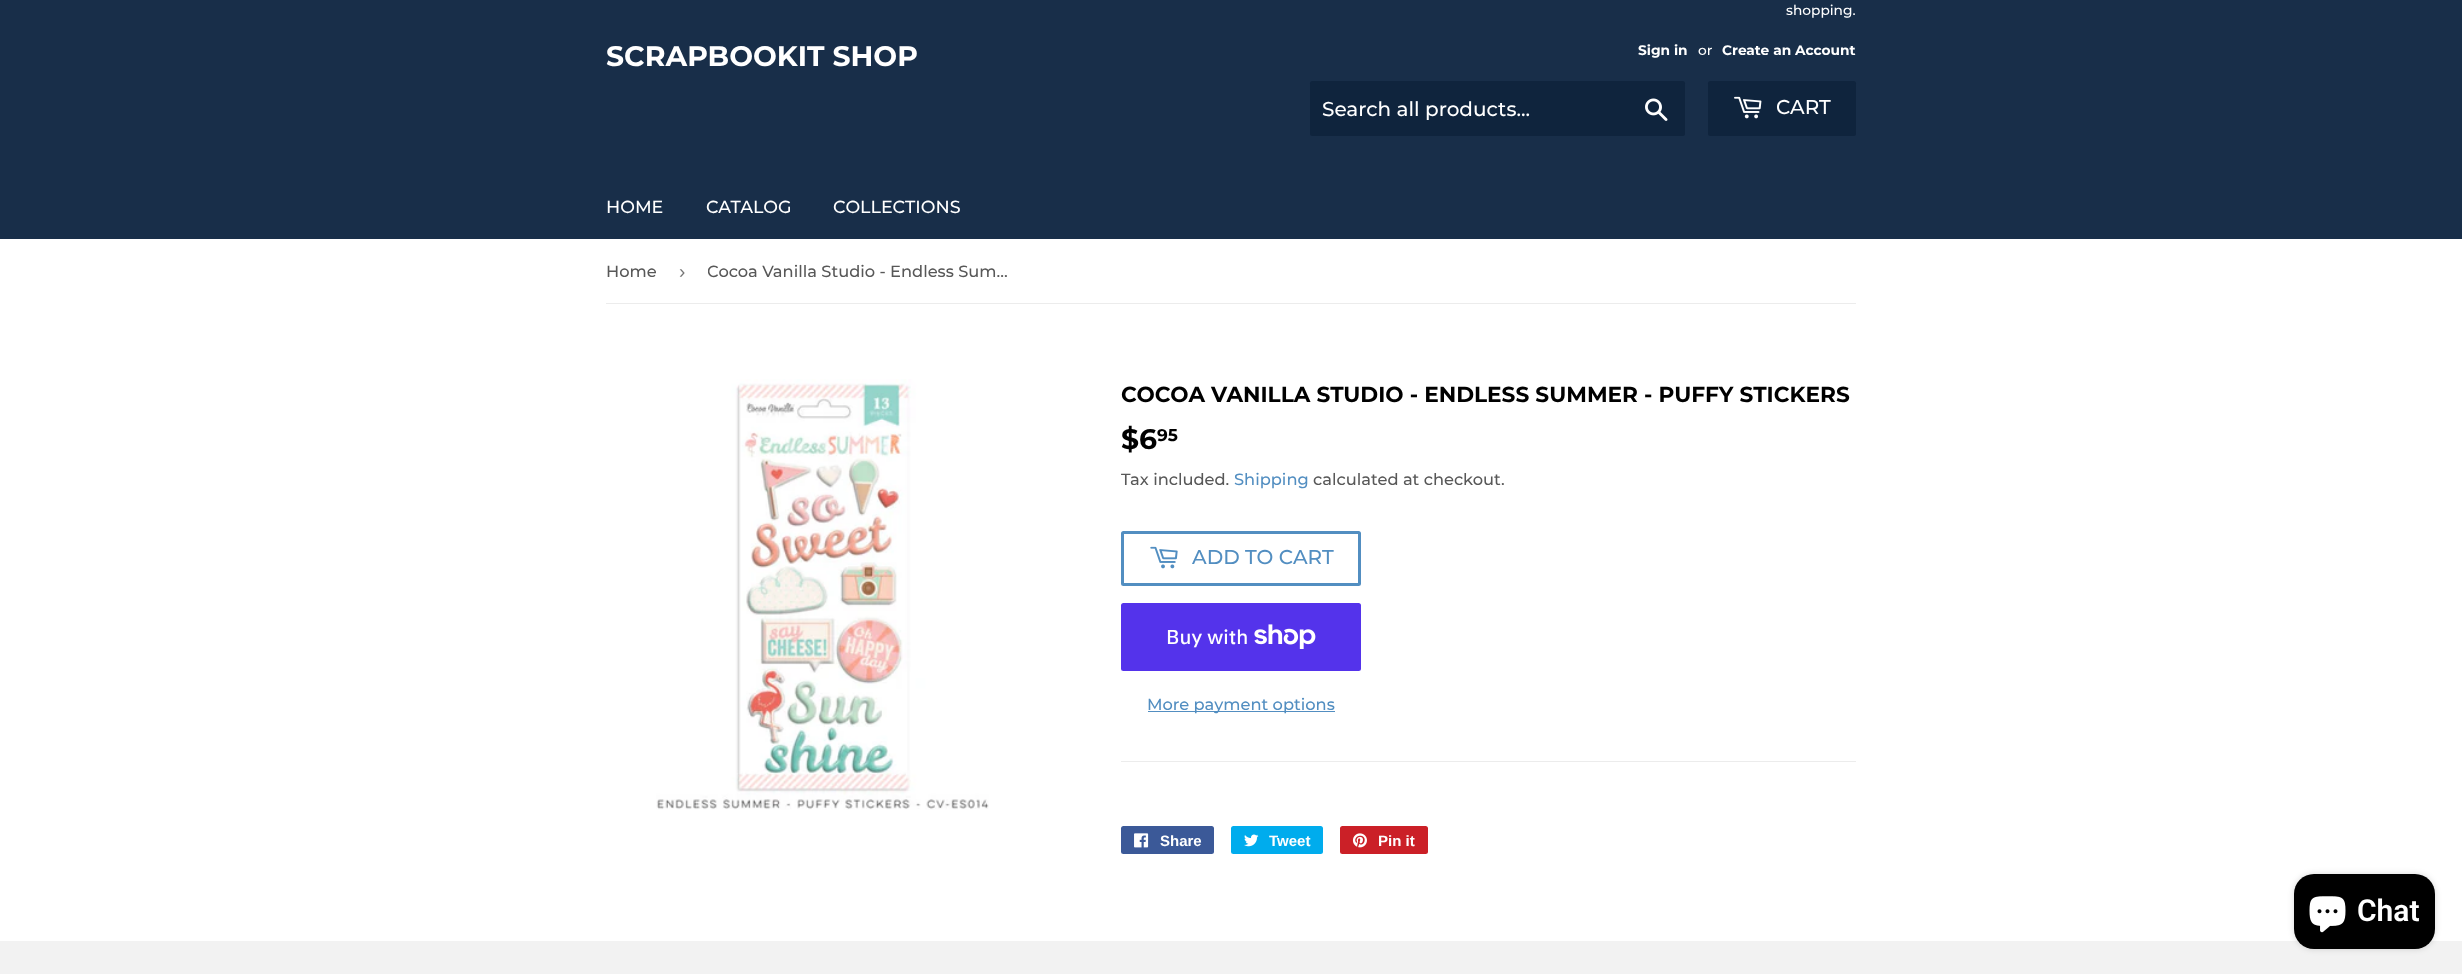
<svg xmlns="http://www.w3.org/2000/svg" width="2462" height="974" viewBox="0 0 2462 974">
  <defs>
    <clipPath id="clip1"><path d="M708 239h312v64H708z"/></clipPath>
  </defs>
  <rect width="100%" height="100%" fill="#fff"/>
  <path d="M0 0h2462v239H0z" fill="#182e49"/>
  <rect x="1310" y="81" width="375" height="55" rx="2.5" fill="#0f243d"/>
  <image x="1645" y="98" width="23" height="23" href="img/1.png"/>
  <rect x="1708" y="81" width="148" height="55" rx="2.5" fill="#0f243d"/>
  <image x="1734" y="96" width="28" height="23" href="img/2.png"/>
  <path d="M606 303h1250v1H606z" fill="#ececec"/>
  <image x="656" y="379" width="333" height="431" href="img/3.png"/>
  <rect x="1122.5" y="532.5" width="237" height="52" rx="1" fill="none" stroke="#528ec1" stroke-width="3"/>
  <image x="1150" y="546" width="28" height="23" href="img/4.png"/>
  <rect x="1121" y="603" width="240" height="68" rx="2.5" fill="#5433eb"/>
  <image x="1254" y="624" width="62" height="25" href="img/5.png"/>
  <path d="M1148 711h187v1H1148z" fill="#528ec1"/>
  <path d="M1121 761h735v1H1121z" fill="#ececec"/>
  <rect x="1121" y="826" width="93" height="28" rx="2.5" fill="#3b5998"/>
  <image x="1134" y="833" width="15" height="15" href="img/6.png"/>
  <rect x="1231" y="826" width="92" height="28" rx="2.5" fill="#00aced"/>
  <image x="1244" y="834" width="15" height="13" href="img/7.png"/>
  <rect x="1340" y="826" width="88" height="28" rx="2.5" fill="#cb2027"/>
  <image x="1352" y="833" width="15" height="15" href="img/8.png"/>
  <path d="M0 941h2462v33H0z" fill="#f2f2f2"/>
  <rect x="2294" y="874" width="141" height="75" rx="20" fill="#00000026" filter="blur(3px)"/>
  <rect x="2294" y="874" width="141" height="75" rx="20" fill="#000"/>
  <image x="2309" y="896" width="37" height="37" href="img/9.png"/>
  <text x="606" y="66" font-family="Montserrat" font-size="28.25" font-weight="bold" fill="#fff">SCRAPBOOKIT SHOP</text>
  <text x="1786" y="15" font-family="Montserrat" font-size="13.75" font-weight="500" fill="#fff">shopping.</text>
  <text x="1638" y="55" font-family="Montserrat" font-size="13.75" font-weight="bold" fill="#fff">Sign in</text>
  <text x="1698" y="55" font-family="Montserrat" font-size="13.75" font-weight="500" fill="#fff">or</text>
  <text x="1722" y="55" font-family="Montserrat" font-size="13.75" font-weight="bold" fill="#fff">Create an Account</text>
  <g font-family="Montserrat" font-size="20" font-weight="500" fill="#fff">
    <text x="1322" y="116">Search all products...</text>
    <text x="1776" y="114">CART</text>
  </g>
  <g font-family="Montserrat" font-size="17.5" font-weight="500" fill="#fff">
    <text x="606" y="213">HOME</text>
    <text x="706" y="213">CATALOG</text>
    <text x="833" y="213">COLLECTIONS</text>
  </g>
  <text x="606" y="277" font-family="Montserrat" font-size="16.25" font-weight="500" fill="#585858">Home</text>
  <text x="679" y="278" font-family="Liberation Sans" font-size="19" fill="#767676">›</text>
  <g clip-path="url(#clip1)">
    <text x="707" y="277" font-family="Montserrat" font-size="16.25" font-weight="500" fill="#585858">Cocoa Vanilla Studio - Endless Sum…</text>
  </g>
  <text x="1121" y="402" font-family="Montserrat" font-size="21.65" font-weight="bold" fill="#000">COCOA VANILLA STUDIO - ENDLESS SUMMER - PUFFY STICKERS</text>
  <text x="1121" y="449" font-family="Montserrat" font-size="28.25" font-weight="bold" fill="#000">$6</text>
  <text x="1157" y="441" font-family="Montserrat" font-size="17" font-weight="bold" fill="#000">95</text>
  <text x="1121" y="485" font-family="Montserrat" font-size="16.25" font-weight="500" fill="#585858">Tax included.</text>
  <text x="1234" y="485" font-family="Montserrat" font-size="16.25" font-weight="500" fill="#528ec1">Shipping</text>
  <text x="1313" y="485" font-family="Montserrat" font-size="16.25" font-weight="500" fill="#585858">calculated at checkout.</text>
  <text x="1192" y="564" font-family="Montserrat" font-size="20" font-weight="500" fill="#528ec1">ADD TO CART</text>
  <text x="1166" y="644" font-family="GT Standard" font-size="20" font-weight="500" fill="#fff">Buy with</text>
  <text x="1147" y="710" font-family="Montserrat" font-size="16.25" font-weight="500" fill="#528ec1">More payment options</text>
  <g font-family="Liberation Sans" font-size="15" font-weight="bold" fill="#fff">
    <text x="1160" y="846">Share</text>
    <text x="1269" y="846">Tweet</text>
    <text x="1378" y="846">Pin it</text>
  </g>
  <text x="2357" y="921" font-family="Roboto" font-size="30" font-weight="600" fill="#fff">Chat</text>
</svg>
